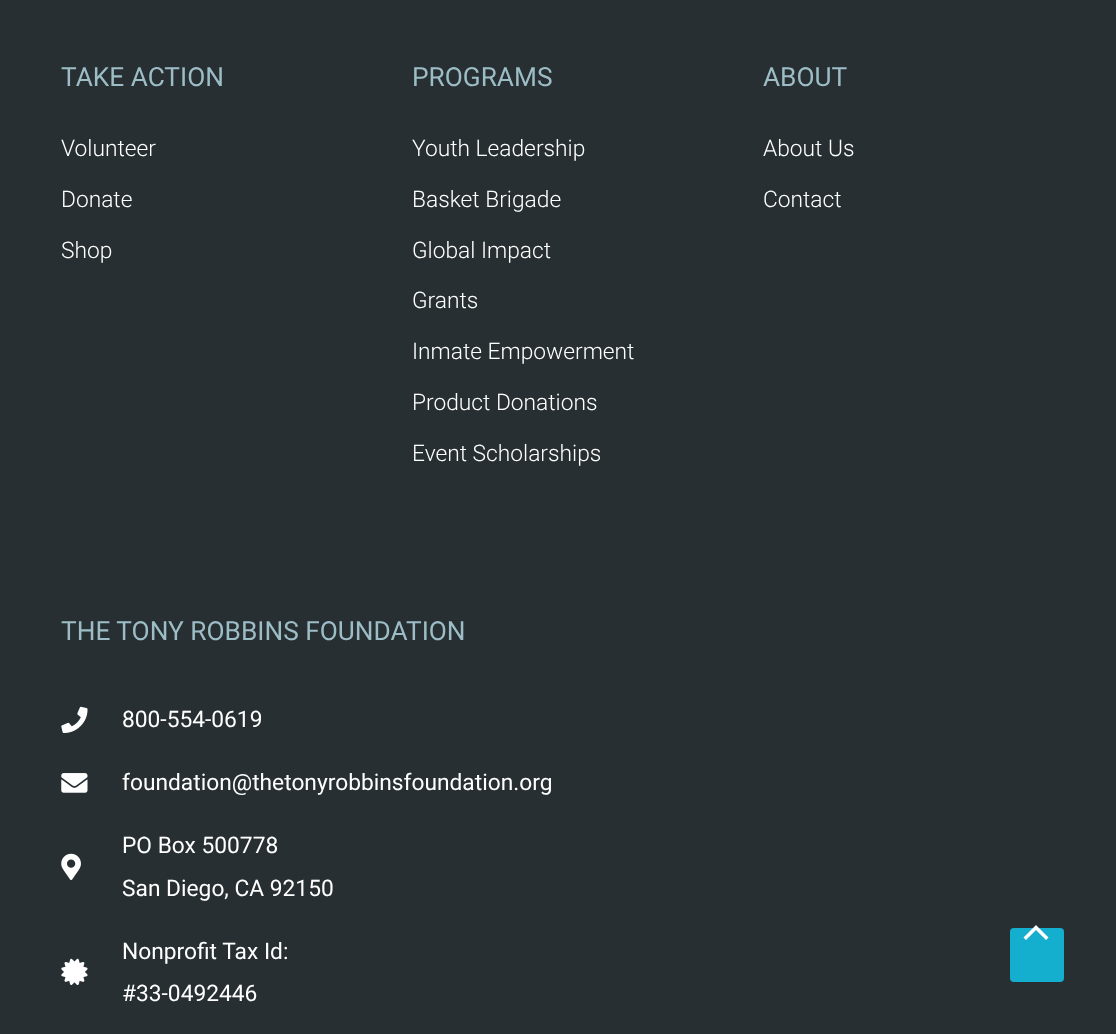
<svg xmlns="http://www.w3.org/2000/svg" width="1116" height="1034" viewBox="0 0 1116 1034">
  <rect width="100%" height="100%" fill="#272f32"/>
  <image x="61" y="706" width="27" height="27" href="img/1.png"/>
  <image x="61" y="773" width="27" height="20" href="img/2.png"/>
  <image x="61" y="853" width="20" height="27" href="img/3.png"/>
  <image x="61" y="958" width="27" height="27" href="img/4.png"/>
  <rect x="1010" y="928" width="54" height="54" rx="4" fill="#14aecf"/>
  <path d="M1048.5 937.5L1036 925L1023.5 937.5L1026 940L1036 930L1046 940Z" fill="#fff"/>
  <text x="61" y="86" font-family="Roboto" font-size="26.25" fill="#9dbdc6">TAKE ACTION</text>
  <g font-family="Roboto" font-size="22.75" font-weight="300" fill="#fff">
    <text x="61" y="156">Volunteer</text>
    <text x="61" y="207">Donate</text>
    <text x="61" y="258">Shop</text>
  </g>
  <text x="412" y="86" font-family="Roboto" font-size="26.25" fill="#9dbdc6">PROGRAMS</text>
  <g font-family="Roboto" font-size="22.75" font-weight="300" fill="#fff">
    <text x="412" y="156">Youth Leadership</text>
    <text x="412" y="207">Basket Brigade</text>
    <text x="412" y="258">Global Impact</text>
    <text x="412" y="308">Grants</text>
    <text x="412" y="359">Inmate Empowerment</text>
    <text x="412" y="410">Product Donations</text>
    <text x="412" y="461">Event Scholarships</text>
  </g>
  <text x="763" y="86" font-family="Roboto" font-size="26.25" fill="#9dbdc6">ABOUT</text>
  <g font-family="Roboto" font-size="22.75" font-weight="300" fill="#fff">
    <text x="763" y="156">About Us</text>
    <text x="763" y="207">Contact</text>
  </g>
  <text x="61" y="640" font-family="Roboto" font-size="26.25" fill="#9dbdc6">THE TONY ROBBINS FOUNDATION</text>
  <g font-family="Roboto" font-size="22.75" fill="#fff">
    <text x="122" y="727">800-554-0619</text>
    <text x="122" y="790">foundation@thetonyrobbinsfoundation.org</text>
    <text x="122" y="853">PO Box 500778</text>
    <text x="122" y="896">San Diego, CA 92150</text>
    <text x="122" y="959">Nonprofit Tax Id:</text>
    <text x="122" y="1001">#33-0492446</text>
  </g>
</svg>
